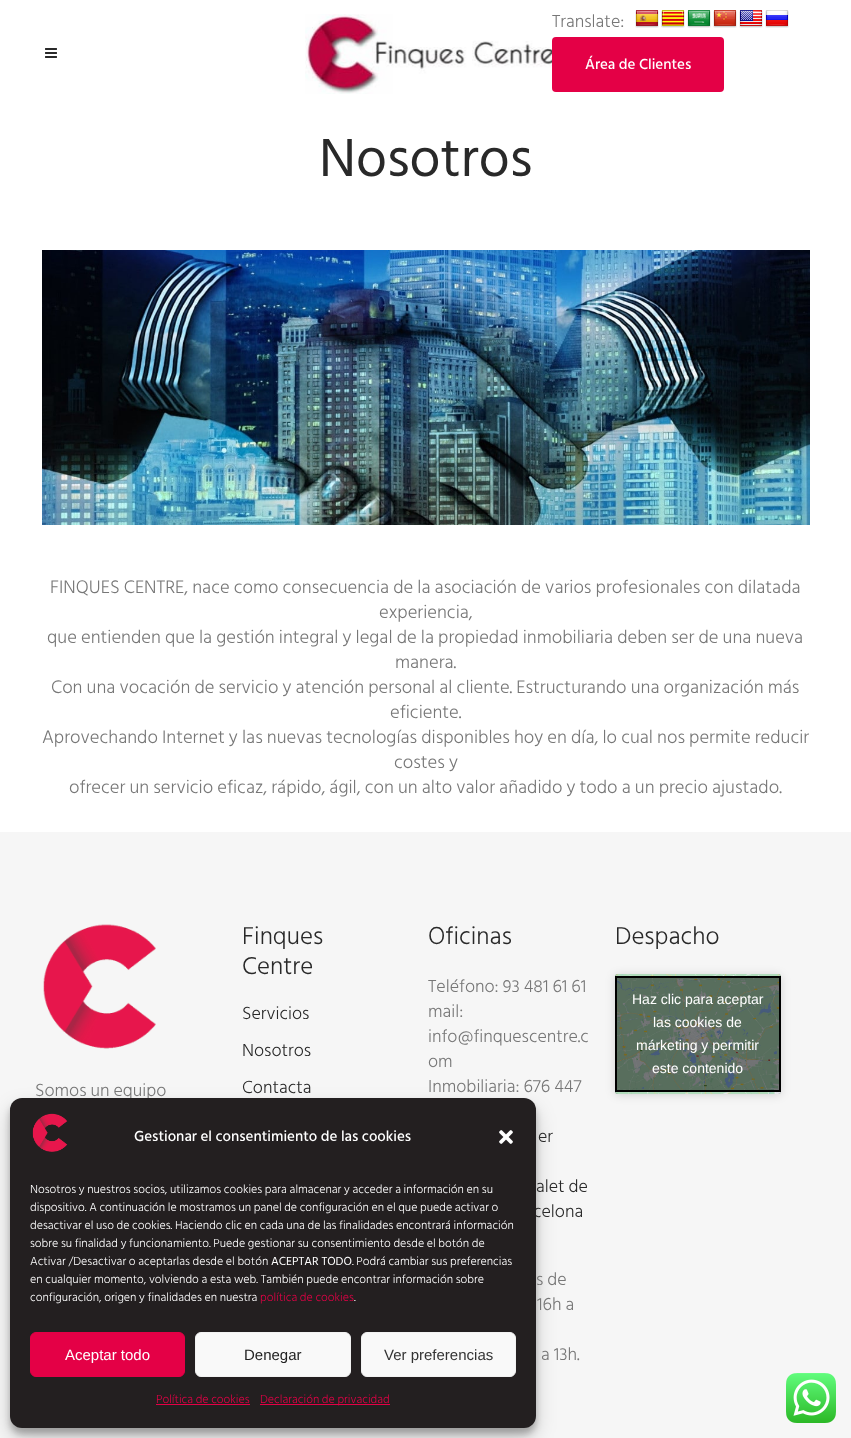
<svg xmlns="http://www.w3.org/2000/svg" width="851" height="1438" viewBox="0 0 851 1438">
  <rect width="100%" height="100%" fill="#fff"/>
  <image x="45" y="48" width="12" height="10" href="img/1.png"/>
  <image x="305" y="14" width="254" height="80" href="img/2.png"/>
  <image x="635" y="10" width="24" height="18" href="img/3.png"/>
  <image x="661" y="10" width="24" height="18" href="img/4.png"/>
  <image x="687" y="10" width="24" height="18" href="img/5.png"/>
  <image x="713" y="10" width="24" height="18" href="img/6.png"/>
  <image x="739" y="10" width="24" height="18" href="img/7.png"/>
  <image x="765" y="10" width="24" height="18" href="img/8.png"/>
  <rect x="552" y="37" width="172" height="55" rx="4" fill="#e40046"/>
  <image x="42" y="250" width="768" height="275" href="img/9.png"/>
  <path d="M0 832h851v606H0z" fill="#f6f6f6"/>
  <rect x="615" y="975" width="166" height="120" rx="3" fill="#00000026" filter="blur(5px)"/>
  <rect x="615" y="974" width="166" height="120" rx="3" fill="#00000080" filter="blur(0.5px)"/>
  <image x="615" y="974" width="166" height="120" href="img/10.png"/>
  <path d="M616 977h164v114H616z" fill="#00000080" stroke="#000" stroke-width="2"/>
  <image x="43" y="924" width="113" height="125" href="img/11.png"/>
  <rect x="10" y="1104" width="526" height="330" rx="12" fill="#0000003b" filter="blur(3px)"/>
  <rect x="10" y="1108" width="526" height="330" rx="12" fill="#00000030" filter="blur(10px)"/>
  <image x="786" y="1373" width="50" height="50" href="img/14.png"/>
  <text x="552" y="27" font-family="Hind Siliguri" font-size="18" font-weight="300" fill="#777">Translate:</text>
  <text x="585" y="69" font-family="Hind Siliguri" font-size="15" font-weight="500" fill="#fff">Área de Clientes</text>
  <text x="319" y="176" font-family="Hind Siliguri" font-size="55" fill="#292929">Nosotros</text>
  <g font-family="Hind Siliguri" font-size="18.65" font-weight="300" fill="#777">
    <text x="50" y="593">FINQUES CENTRE, nace como consecuencia de la asociación de varios profesionales con dilatada</text>
    <text x="379" y="618">experiencia,</text>
    <text x="47" y="643">que entienden que la gestión integral y legal de la propiedad inmobiliaria deben ser de una nueva</text>
    <text x="395" y="668">manera.</text>
    <text x="51" y="693">Con una vocación de servicio y atención personal al cliente. Estructurando una organización más</text>
    <text x="390" y="718">eficiente.</text>
    <text x="42" y="743">Aprovechando Internet y las nuevas tecnologías disponibles hoy en día, lo cual nos permite reducir</text>
    <text x="394" y="768">costes y</text>
    <text x="69" y="793">ofrecer un servicio eficaz, rápido, ágil, con un alto valor añadido y todo a un precio ajustado.</text>
  </g>
  <g font-family="Hind Siliguri" font-size="25" font-weight="300" fill="#292929">
    <text x="242" y="944">Finques</text>
    <text x="242" y="974">Centre</text>
  </g>
  <g font-family="Hind Siliguri" font-size="18" font-weight="300" fill="#292929">
    <text x="242" y="1019">Servicios</text>
    <text x="242" y="1056">Nosotros</text>
    <text x="242" y="1093">Contacta</text>
  </g>
  <text x="428" y="944" font-family="Hind Siliguri" font-size="25" font-weight="300" fill="#292929">Oficinas</text>
  <g font-family="Hind Siliguri" font-size="18" font-weight="300" fill="#777">
    <text x="428" y="992">Teléfono: 93 481 61 61</text>
    <text x="428" y="1017">mail:</text>
    <text x="428" y="1042">info@finquescentre.c</text>
    <text x="428" y="1067">om</text>
    <text x="428" y="1092">Inmobiliaria: 676 447</text>
  </g>
  <g font-family="Hind Siliguri" font-size="18" font-weight="300" fill="#292929">
    <text x="538" y="1142">er</text>
    <text x="536" y="1192">alet de</text>
    <text x="533" y="1217">celona</text>
  </g>
  <g font-family="Hind Siliguri" font-size="18" font-weight="300" fill="#777">
    <text x="536" y="1285">s de</text>
    <text x="537" y="1310">16h a</text>
    <text x="541" y="1360">a 13h.</text>
  </g>
  <text x="615" y="944" font-family="Hind Siliguri" font-size="25" font-weight="300" fill="#292929">Despacho</text>
  <g font-family="Liberation Sans" font-size="14" fill="#fff">
    <text x="632" y="1004">Haz clic para aceptar</text>
    <text x="653" y="1027">las cookies de</text>
    <text x="636" y="1050">márketing y permitir</text>
    <text x="652" y="1073">este contenido</text>
  </g>
  <text x="35" y="1096" font-family="Hind Siliguri" font-size="18" font-weight="300" fill="#777">Somos un equipo</text>
  <rect x="10" y="1098" width="526" height="330" rx="12" fill="#231f20"/>
  <image x="32" y="1113" width="36" height="39" href="img/12.png"/>
  <text x="134" y="1141" font-family="Hind Siliguri" font-size="15" font-weight="500" fill="#fff">Gestionar el consentimiento de las cookies</text>
  <image x="499" y="1130" width="14" height="14" href="img/13.png"/>
  <g font-family="Hind Siliguri" font-size="12" font-weight="300" fill="#fff">
    <text x="30" y="1193">Nosotros y nuestros socios, utilizamos cookies para almacenar y acceder a información en su</text>
    <text x="30" y="1211">dispositivo. A continuación le mostramos un panel de configuración en el que puede activar o</text>
    <text x="30" y="1229">desactivar el uso de cookies. Haciendo clic en cada una de las finalidades encontrará información</text>
    <text x="30" y="1247">sobre su finalidad y funcionamiento. Puede gestionar su consentimiento desde el botón de</text>
    <text x="30" y="1265">Activar /Desactivar o aceptarlas desde el botón</text>
  </g>
  <text x="271" y="1265" font-family="Hind Siliguri" font-size="12" fill="#fff">ACEPTAR TODO</text>
  <g font-family="Hind Siliguri" font-size="12" font-weight="300" fill="#fff">
    <text x="352" y="1265">. Podrá cambiar sus preferencias</text>
    <text x="30" y="1283">en cualquier momento, volviendo a esta web. También puede encontrar información sobre</text>
    <text x="30" y="1301">configuración, origen y finalidades en nuestra</text>
  </g>
  <text x="260" y="1301" font-family="Hind Siliguri" font-size="12" font-weight="300" fill="#e40046">política de cookies</text>
  <text x="354" y="1301" font-family="Hind Siliguri" font-size="12" font-weight="300" fill="#fff">.</text>
  <rect x="30.5" y="1332.5" width="154" height="44" rx="5.5" fill="#e40046" stroke="#e40046"/>
  <text x="65" y="1360" font-family="Liberation Sans" font-size="15" fill="#fff">Aceptar todo</text>
  <rect x="195.5" y="1332.5" width="155" height="44" rx="5.5" fill="#f9f9f9" stroke="#f2f2f2"/>
  <text x="244" y="1360" font-family="Liberation Sans" font-size="15" fill="#222">Denegar</text>
  <rect x="361.5" y="1332.5" width="154" height="44" rx="5.5" fill="#f9f9f9" stroke="#f2f2f2"/>
  <text x="384" y="1360" font-family="Liberation Sans" font-size="15" fill="#333">Ver preferencias</text>
  <text x="156" y="1403" font-family="Hind Siliguri" font-size="12" font-weight="300" fill="#e40046">Política de cookies</text>
  <path d="M156 1404h94v1H156z" fill="#e40046"/>
  <path d="M260 1404h130v1H260z" fill="#e40046"/>
  <text x="260" y="1403" font-family="Hind Siliguri" font-size="12" font-weight="300" fill="#e40046">Declaración de privacidad</text>
</svg>
